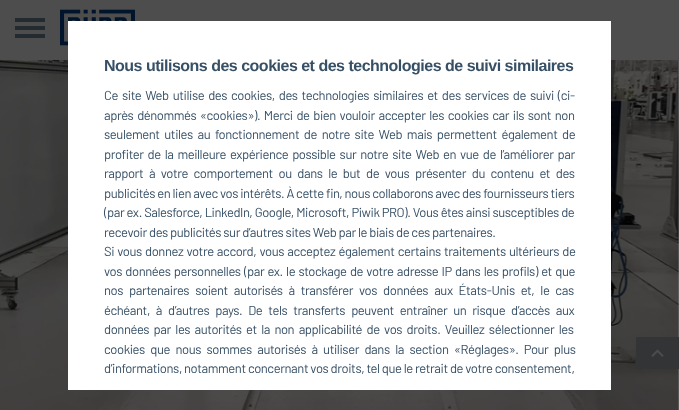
<svg xmlns="http://www.w3.org/2000/svg" width="679" height="410" viewBox="0 0 679 410">
  <rect width="100%" height="100%" fill="#fff"/>
  <path d="M0 0h679v60H0z" fill="#4d4d4d"/>
  <path d="M15 18h30v4H15z" fill="#232a30"/>
  <path d="M15 26h30v4H15z" fill="#232a30"/>
  <path d="M15 34h30v4H15z" fill="#232a30"/>
  <image x="60" y="9" width="75" height="37" href="img/1.png"/>
  <image x="0" y="60" width="679" height="350" href="img/2.png"/>
  <path d="M68 21h543v369H68z" fill="#fff"/>
  <path d="M636 337h43v32H636z" fill="#323436"/>
  <image x="651" y="349" width="13" height="8" href="img/3.png"/>
  <text x="104" y="71" font-family="Liberation Sans" font-size="16" font-weight="bold" letter-spacing="-0.5" fill="#375066">Nous utilisons des cookies et des technologies de suivi similaires</text>
  <g font-family="Barlow" font-size="13" letter-spacing="-0.42" fill="#375066">
    <text x="104" y="100" word-spacing="1.75">Ce site Web utilise des cookies, des technologies similaires et des services de suivi (ci-</text>
    <text x="104" y="120" word-spacing="1.5">après dénommés «cookies»). Merci de bien vouloir accepter les cookies car ils sont non</text>
    <text x="104" y="139" word-spacing="2.5">seulement utiles au fonctionnement de notre site Web mais permettent également de</text>
    <text x="104" y="159" word-spacing="1.75">profiter de la meilleure expérience possible sur notre site Web en vue de l’améliorer par</text>
    <text x="104" y="178" word-spacing="3.4">rapport à votre comportement ou dans le but de vous présenter du contenu et des</text>
    <text x="104" y="198">publicités en lien avec vos intérêts. À cette fin, nous collaborons avec des fournisseurs tiers</text>
    <text x="104" y="217" word-spacing="0.1">(par ex. Salesforce, LinkedIn, Google, Microsoft, Piwik PRO). Vous êtes ainsi susceptibles de</text>
    <text x="104" y="237">recevoir des publicités sur d’autres sites Web par le biais de ces partenaires.</text>
    <text x="104" y="256" word-spacing="1">Si vous donnez votre accord, vous acceptez également certains traitements ultérieurs de</text>
    <text x="104" y="276" word-spacing="1.1">vos données personnelles (par ex. le stockage de votre adresse IP dans les profils) et que</text>
    <text x="104" y="295" word-spacing="3.75">nos partenaires soient autorisés à transférer vos données aux États-Unis et, le cas</text>
    <text x="104" y="315" word-spacing="3.75">échéant, à d’autres pays. De tels transferts peuvent entraîner un risque d’accès aux</text>
    <text x="104" y="334" word-spacing="2.25">données par les autorités et la non applicabilité de vos droits. Veuillez sélectionner les</text>
    <text x="104" y="354" word-spacing="3.25">cookies que nous sommes autorisés à utiliser dans la section «Réglages». Pour plus</text>
    <text x="104" y="373">d’informations, notamment concernant vos droits, tel que le retrait de votre consentement,</text>
  </g>
</svg>
